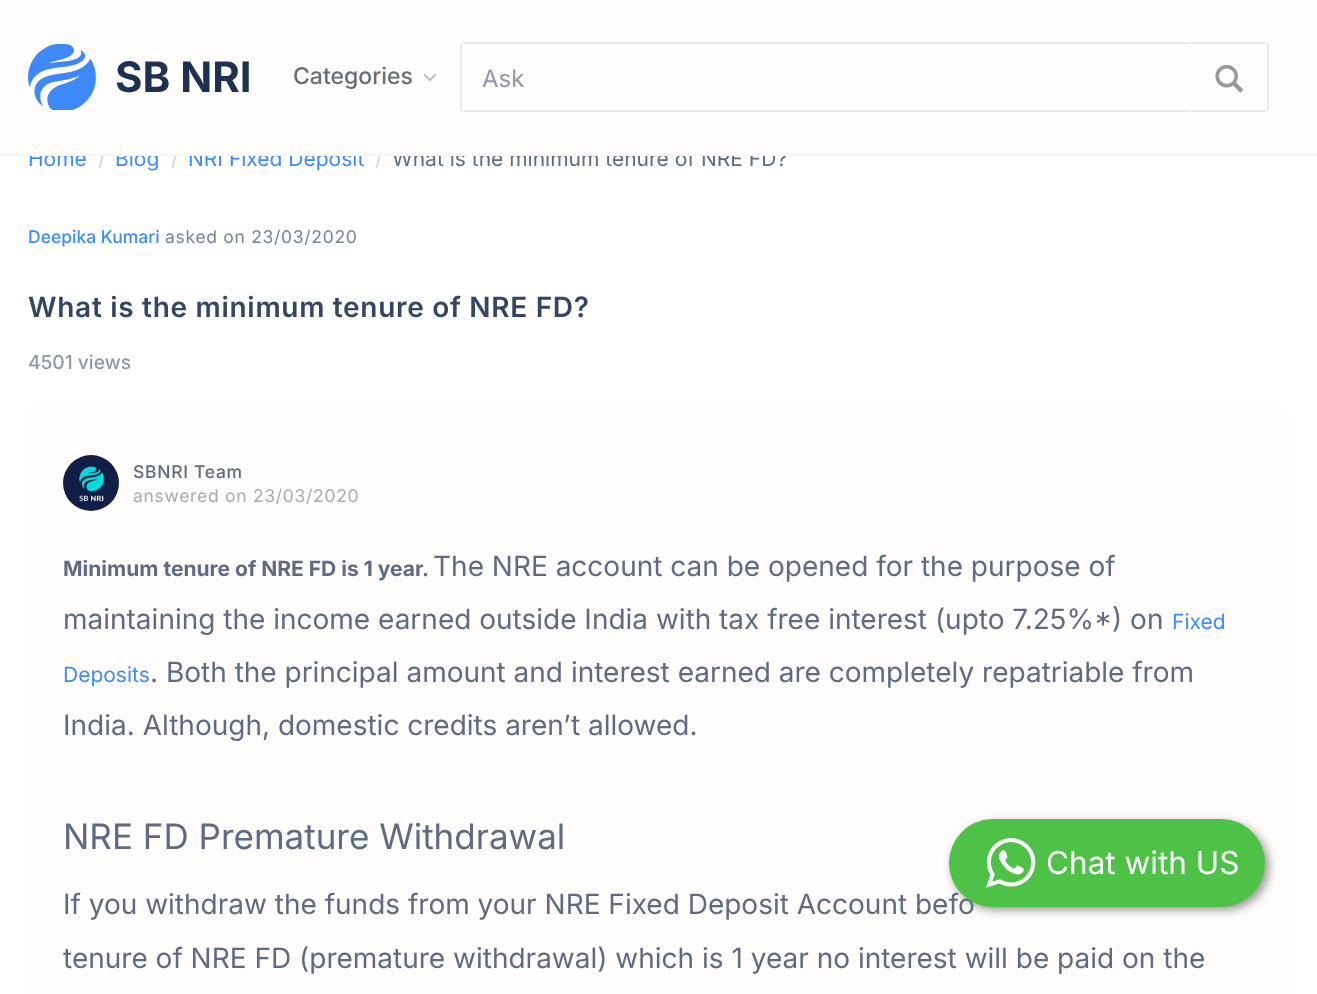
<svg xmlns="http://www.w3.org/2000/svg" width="1317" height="994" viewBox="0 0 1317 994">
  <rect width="100%" height="100%" fill="#fff"/>
  <rect x="28" y="403" width="1262" height="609" rx="18" fill="#fffdfb"/>
  <image x="63" y="455" width="56" height="56" href="img/4.png"/>
  <rect x="952" y="823" width="317" height="87" rx="43.5" fill="#00000066" filter="blur(5px)"/>
  <text x="28" y="166" font-family="Inter" font-size="21" fill="#3d8bfd">Home</text>
  <text x="98" y="166" font-family="Inter" font-size="21" fill="#d6d6d6">/</text>
  <text x="115" y="166" font-family="Inter" font-size="21" fill="#3d8bfd">Blog</text>
  <text x="171" y="166" font-family="Inter" font-size="21" fill="#d6d6d6">/</text>
  <text x="188" y="166" font-family="Inter" font-size="21" fill="#3d8bfd">NRI Fixed Deposit</text>
  <text x="375" y="166" font-family="Inter" font-size="21" fill="#d6d6d6">/</text>
  <text x="392" y="166" font-family="Inter" font-size="21" fill="#5e6b82">What is the minimum tenure of NRE FD?</text>
  <path d="M0 0h1317v154H0z" fill="#fffdfb"/>
  <rect x="461" y="43" width="807" height="68" rx="3" fill="none" stroke="#e9e9ea" stroke-width="2"/>
  <rect x="462" y="42" width="728" height="70" rx="4" fill="#fffdfb"/>
  <text x="482" y="87" font-family="Inter" font-size="24" fill="#8f98a8">Ask</text>
  <rect x="1190" y="42" width="77" height="70" rx="4" fill="#fffdfb"/>
  <image x="1215" y="65" width="29" height="28" href="img/3.png"/>
  <path d="M1192 110h73v2H1192z" fill="#1f31511a"/>
  <path d="M1192 42h73v2H1192z" fill="#1f31511a"/>
  <path d="M464 110h724v2H464z" fill="#1f31511a"/>
  <path d="M464 42h724v2H464z" fill="#1f31511a"/>
  <image x="423" y="73" width="14" height="9" href="img/2.png"/>
  <text x="293" y="84" font-family="Inter" font-size="23" font-weight="500" fill="#646f79">Categories</text>
  <text x="115" y="92" font-family="Inter" font-size="42" font-weight="bold" fill="#1f3151">SB NRI</text>
  <image x="28" y="44" width="68" height="66" href="img/1.png"/>
  <path d="M0 154h1317v2H0z" fill="#f7f6f5"/>
  <text x="28" y="243" font-family="Inter" font-size="17.5" font-weight="500" fill="#3d8bfd">Deepika Kumari</text>
  <text x="165" y="243" font-family="Inter" font-size="17.5" letter-spacing="0.7" fill="#798397">asked on 23/03/2020</text>
  <text x="28" y="317" font-family="Inter" font-size="28" font-weight="600" letter-spacing="0.7" fill="#354662">What is the minimum tenure of NRE FD?</text>
  <text x="28" y="369" font-family="Inter" font-size="19.25" font-weight="500" fill="#8f98a8">4501 views</text>
  <text x="133" y="478" font-family="Inter" font-size="17.5" font-weight="500" letter-spacing="0.7" fill="#5e6b82">SBNRI Team</text>
  <text x="133" y="502" font-family="Inter" font-size="17.5" letter-spacing="0.7" fill="#a5abb7">answered on 23/03/2020</text>
  <text x="63" y="576" font-family="Inter" font-size="21" font-weight="bold" fill="#5e6b82">Minimum tenure of NRE FD is 1 year.</text>
  <g font-family="Inter" font-size="28" fill="#5e6b82">
    <text x="433" y="576">The NRE account can be opened for the purpose of</text>
    <text x="63" y="629">maintaining the income earned outside India with</text>
    <text x="719" y="629">tax free interest (upto 7.25%*) on</text>
  </g>
  <g font-family="Inter" font-size="21" fill="#3d8bfd">
    <text x="1172" y="629">Fixed</text>
    <text x="63" y="682">Deposits</text>
  </g>
  <g font-family="Inter" font-size="28" fill="#5e6b82">
    <text x="150" y="682">. Both the principal amount and interest earned are completely repatriable from</text>
    <text x="63" y="735">India. Although, domestic credits aren’t allowed.</text>
  </g>
  <text x="63" y="849" font-family="Inter" font-size="35" fill="#5e6b82">NRE FD Premature Withdrawal</text>
  <g font-family="Inter" font-size="28" fill="#5e6b82">
    <text x="63" y="914">If you withdraw the funds from your NRE Fixed Deposit Account befo</text>
    <text x="63" y="968">tenure of NRE FD (premature withdrawal) which is 1 year no interest will be paid on the</text>
  </g>
  <rect x="949" y="819" width="316" height="88" rx="44" fill="#4dc247"/>
  <image x="986" y="838" width="50" height="50" href="img/5.png"/>
  <text x="1046" y="874" font-family="Inter" font-size="31.5" fill="#fff">Chat with US</text>
</svg>
